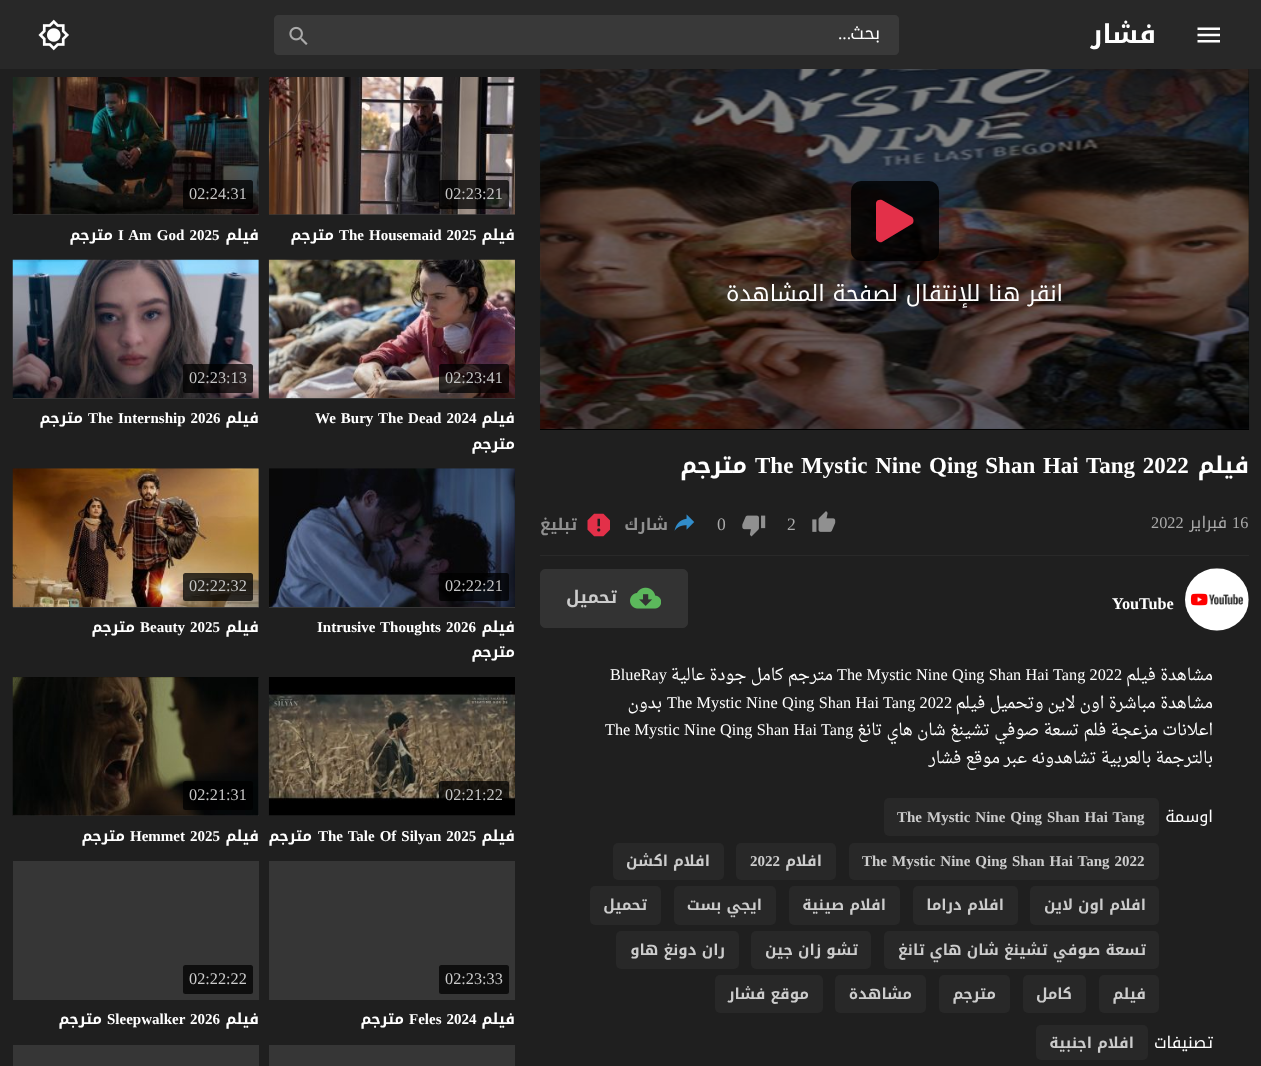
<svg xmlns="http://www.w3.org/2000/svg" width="1261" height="1066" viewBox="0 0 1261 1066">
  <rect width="100%" height="100%" fill="#1f1f1f"/>
  <path d="M0 0h1261v69H0z" fill="#282828"/>
  <image x="38" y="19" width="31" height="32" href="img/1.png"/>
  <path d="M278 15H336V55H278C276 55 274 53 274 51V19C274 17 276 15 278 15Z" fill="#393939"/>
  <image x="289" y="26" width="19" height="19" href="img/2.png"/>
  <path d="M336 15H895C897 15 899 17 899 19V51C899 53 897 55 895 55H336Z" fill="#393939"/>
  <image x="1197" y="27" width="23" height="16" href="img/3.png"/>
  <path d="M13 78h246v137H13z" fill="#363636"/>
  <image x="12" y="77" width="247" height="138" href="img/4.png"/>
  <rect x="183" y="180" width="70" height="29" rx="2.5" fill="#000000bf"/>
  <path d="M269 214h246v1H269z" fill="#363636"/>
  <image x="268" y="77" width="247" height="138" href="img/5.png"/>
  <rect x="439" y="180" width="70" height="29" rx="2.5" fill="#000000bf"/>
  <path d="M13 260h246v139H13z" fill="#363636"/>
  <image x="12" y="259" width="247" height="140" href="img/6.png"/>
  <rect x="183" y="364" width="70" height="29" rx="2.5" fill="#000000bf"/>
  <path d="M269 398h246v1H269z" fill="#363636"/>
  <image x="268" y="259" width="247" height="140" href="img/7.png"/>
  <rect x="439" y="364" width="70" height="29" rx="2.5" fill="#000000bf"/>
  <path d="M13 469h246v139H13z" fill="#363636"/>
  <image x="12" y="468" width="247" height="139" href="img/8.png"/>
  <rect x="183" y="573" width="70" height="28" rx="2.5" fill="#000000bf"/>
  <path d="M269 607h246v1H269z" fill="#363636"/>
  <image x="269" y="468" width="246" height="139" href="img/9.png"/>
  <rect x="439" y="573" width="70" height="28" rx="2.5" fill="#000000bf"/>
  <path d="M13 678h246v138H13z" fill="#363636"/>
  <image x="12" y="677" width="247" height="139" href="img/10.png"/>
  <rect x="183" y="781" width="70" height="29" rx="2.5" fill="#000000bf"/>
  <path d="M269 815h246v1H269z" fill="#363636"/>
  <image x="268" y="677" width="247" height="139" href="img/11.png"/>
  <rect x="439" y="781" width="70" height="29" rx="2.5" fill="#000000bf"/>
  <path d="M13 861h246v139H13z" fill="#363636"/>
  <rect x="183" y="965" width="70" height="29" rx="2.5" fill="#0e0e0e"/>
  <path d="M269 861h246v139H269z" fill="#363636"/>
  <rect x="439" y="965" width="70" height="29" rx="2.5" fill="#0e0e0e"/>
  <path d="M13 1045h246v21H13z" fill="#363636"/>
  <path d="M269 1045h246v21H269z" fill="#363636"/>
  <path d="M540 69h709v361H540z" fill="#000"/>
  <image x="540" y="69" width="709" height="360" href="img/12.png"/>
  <rect x="851" y="181" width="88" height="80" rx="10" fill="#000000cc"/>
  <path d="M912 217L882 200C880 199 876 200 876 203V238C876 241 880 243 882 242L912 224C914 223 914 219 912 217Z" fill="#e33049"/>
  <path d="M540 555h709v1H540z" fill="#292929"/>
  <image x="587" y="513" width="23" height="24" href="img/13.png"/>
  <image x="674" y="514" width="21" height="17" href="img/14.png"/>
  <image x="742" y="515" width="24" height="22" href="img/15.png"/>
  <image x="812" y="511" width="24" height="21" href="img/16.png"/>
  <rect x="540.5" y="569.5" width="147" height="58" rx="4.5" fill="#333" stroke="#333"/>
  <image x="630" y="587" width="31" height="22" href="img/17.png"/>
  <image x="1185" y="568" width="64" height="63" href="img/18.png"/>
  <rect x="884" y="798" width="275" height="38" rx="5" fill="#282828"/>
  <rect x="613" y="843" width="111" height="37" rx="5" fill="#282828"/>
  <rect x="736" y="843" width="100" height="37" rx="5" fill="#282828"/>
  <rect x="849" y="843" width="310" height="37" rx="5" fill="#282828"/>
  <rect x="590" y="886" width="71" height="39" rx="5" fill="#282828"/>
  <rect x="674" y="886" width="102" height="39" rx="5" fill="#282828"/>
  <rect x="789" y="886" width="111" height="39" rx="5" fill="#282828"/>
  <rect x="913" y="886" width="105" height="39" rx="5" fill="#282828"/>
  <rect x="1030" y="886" width="129" height="39" rx="5" fill="#282828"/>
  <rect x="616" y="931" width="123" height="38" rx="5" fill="#282828"/>
  <rect x="751" y="931" width="120" height="38" rx="5" fill="#282828"/>
  <rect x="884" y="931" width="275" height="38" rx="5" fill="#282828"/>
  <rect x="715" y="975" width="108" height="38" rx="5" fill="#282828"/>
  <rect x="835" y="975" width="91" height="38" rx="5" fill="#282828"/>
  <rect x="939" y="975" width="71" height="38" rx="5" fill="#282828"/>
  <rect x="1023" y="975" width="63" height="38" rx="5" fill="#282828"/>
  <rect x="1099" y="975" width="60" height="38" rx="5" fill="#282828"/>
  <rect x="1036" y="1025" width="112" height="35" rx="5" fill="#282828"/>
  <text x="851" y="39" font-family="Liberation Serif" font-size="17.5" direction="rtl" fill="#fff">...</text>
  <text x="880" y="39" font-family="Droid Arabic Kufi" font-size="17.5" direction="rtl" fill="#fff">بحث</text>
  <text x="1156" y="43" font-family="Droid Arabic Kufi" font-size="26" font-weight="bold" direction="rtl" fill="#fff">فشار</text>
  <text x="189" y="199" font-family="Liberation Serif" font-size="16.25" fill="#c5c5c5">02:24:31</text>
  <text x="113" y="240" font-family="Droid Arabic Kufi" font-size="15" font-weight="bold" direction="rtl" fill="#fff">مترجم</text>
  <text x="118" y="240" word-spacing="1.5" font-family="Liberation Serif" font-size="15" font-weight="bold" fill="#fff">I Am God 2025</text>
  <text x="259" y="240" font-family="Droid Arabic Kufi" font-size="15" font-weight="bold" direction="rtl" fill="#fff">فيلم</text>
  <text x="445" y="199" font-family="Liberation Serif" font-size="16.25" fill="#c5c5c5">02:23:21</text>
  <text x="334" y="240" font-family="Droid Arabic Kufi" font-size="15" font-weight="bold" direction="rtl" fill="#fff">مترجم</text>
  <text x="339" y="240" word-spacing="1.25" font-family="Liberation Serif" font-size="15" font-weight="bold" fill="#fff">The Housemaid 2025</text>
  <text x="515" y="240" font-family="Droid Arabic Kufi" font-size="15" font-weight="bold" direction="rtl" fill="#fff">فيلم</text>
  <text x="189" y="383" font-family="Liberation Serif" font-size="16.25" fill="#c5c5c5">02:23:13</text>
  <text x="83" y="423" font-family="Droid Arabic Kufi" font-size="15" font-weight="bold" direction="rtl" fill="#fff">مترجم</text>
  <text x="88" y="423" word-spacing="1.25" font-family="Liberation Serif" font-size="15" font-weight="bold" fill="#fff">The Internship 2026</text>
  <text x="259" y="423" font-family="Droid Arabic Kufi" font-size="15" font-weight="bold" direction="rtl" fill="#fff">فيلم</text>
  <text x="445" y="383" font-family="Liberation Serif" font-size="16.25" fill="#c5c5c5">02:23:41</text>
  <text x="315" y="423" word-spacing="1.25" font-family="Liberation Serif" font-size="15" font-weight="bold" fill="#fff">We Bury The Dead 2024</text>
  <g font-family="Droid Arabic Kufi" font-size="15" font-weight="bold" direction="rtl" fill="#fff">
    <text x="515" y="423">فيلم</text>
    <text x="515" y="449">مترجم</text>
  </g>
  <text x="189" y="591" font-family="Liberation Serif" font-size="16.25" fill="#c5c5c5">02:22:32</text>
  <text x="135" y="632" font-family="Droid Arabic Kufi" font-size="15" font-weight="bold" direction="rtl" fill="#fff">مترجم</text>
  <text x="140" y="632" word-spacing="1.25" font-family="Liberation Serif" font-size="15" font-weight="bold" fill="#fff">Beauty 2025</text>
  <text x="259" y="632" font-family="Droid Arabic Kufi" font-size="15" font-weight="bold" direction="rtl" fill="#fff">فيلم</text>
  <text x="445" y="591" font-family="Liberation Serif" font-size="16.25" fill="#c5c5c5">02:22:21</text>
  <text x="317" y="632" word-spacing="1.25" font-family="Liberation Serif" font-size="15" font-weight="bold" fill="#fff">Intrusive Thoughts 2026</text>
  <g font-family="Droid Arabic Kufi" font-size="15" font-weight="bold" direction="rtl" fill="#fff">
    <text x="515" y="632">فيلم</text>
    <text x="515" y="657">مترجم</text>
  </g>
  <text x="189" y="800" font-family="Liberation Serif" font-size="16.25" fill="#c5c5c5">02:21:31</text>
  <text x="125" y="841" font-family="Droid Arabic Kufi" font-size="15" font-weight="bold" direction="rtl" fill="#fff">مترجم</text>
  <text x="130" y="841" word-spacing="1.25" font-family="Liberation Serif" font-size="15" font-weight="bold" fill="#fff">Hemmet 2025</text>
  <text x="259" y="841" font-family="Droid Arabic Kufi" font-size="15" font-weight="bold" direction="rtl" fill="#fff">فيلم</text>
  <text x="445" y="800" font-family="Liberation Serif" font-size="16.25" fill="#c5c5c5">02:21:22</text>
  <text x="312" y="841" font-family="Droid Arabic Kufi" font-size="15" font-weight="bold" direction="rtl" fill="#fff">مترجم</text>
  <text x="318" y="841" word-spacing="1.25" font-family="Liberation Serif" font-size="15" font-weight="bold" fill="#fff">The Tale Of Silyan 2025</text>
  <text x="515" y="841" font-family="Droid Arabic Kufi" font-size="15" font-weight="bold" direction="rtl" fill="#fff">فيلم</text>
  <text x="189" y="984" font-family="Liberation Serif" font-size="16.25" fill="#ccc">02:22:22</text>
  <text x="102" y="1024" font-family="Droid Arabic Kufi" font-size="15" font-weight="bold" direction="rtl" fill="#fff">مترجم</text>
  <text x="107" y="1024" word-spacing="1.25" font-family="Liberation Serif" font-size="15" font-weight="bold" fill="#fff">Sleepwalker 2026</text>
  <text x="259" y="1024" font-family="Droid Arabic Kufi" font-size="15" font-weight="bold" direction="rtl" fill="#fff">فيلم</text>
  <text x="445" y="984" font-family="Liberation Serif" font-size="16.25" fill="#ccc">02:23:33</text>
  <text x="404" y="1024" font-family="Droid Arabic Kufi" font-size="15" font-weight="bold" direction="rtl" fill="#fff">مترجم</text>
  <text x="409" y="1024" word-spacing="1.25" font-family="Liberation Serif" font-size="15" font-weight="bold" fill="#fff">Feles 2024</text>
  <text x="515" y="1024" font-family="Droid Arabic Kufi" font-size="15" font-weight="bold" direction="rtl" fill="#fff">فيلم</text>
  <text x="1063" y="301" font-family="Droid Arabic Kufi" font-size="22.5" direction="rtl" fill="#fff">انقر هنا للإنتقال لصفحة المشاهدة</text>
  <text x="747" y="473" font-family="Droid Arabic Kufi" font-size="23" font-weight="bold" direction="rtl" fill="#fff">مترجم</text>
  <text x="755" y="473" word-spacing="2" font-family="Liberation Serif" font-size="23" font-weight="bold" fill="#fff">The Mystic Nine Qing Shan Hai Tang 2022</text>
  <text x="1249" y="473" font-family="Droid Arabic Kufi" font-size="23" font-weight="bold" direction="rtl" fill="#fff">فيلم</text>
  <g font-family="Droid Arabic Kufi" font-size="16.25" font-weight="bold" direction="rtl" fill="#909090">
    <text x="577" y="530">تبليغ</text>
    <text x="668" y="530">شارك</text>
  </g>
  <g font-family="Liberation Serif" font-size="17.5" fill="#aaa">
    <text x="717" y="530">0</text>
    <text x="787" y="530">2</text>
  </g>
  <text x="1151" y="528" font-family="Liberation Serif" font-size="16.25" fill="#aaa">2022</text>
  <text x="1227" y="528" font-family="Droid Arabic Kufi" font-size="16.25" direction="rtl" fill="#aaa">فبراير</text>
  <text x="1232" y="528" font-family="Liberation Serif" font-size="16.25" fill="#aaa">16</text>
  <text x="617" y="603" font-family="Droid Arabic Kufi" font-size="17.5" font-weight="bold" direction="rtl" fill="#ccc">تحميل</text>
  <text x="1112" y="609" font-family="Liberation Serif" font-size="16.25" font-weight="bold" fill="#fff">YouTube</text>
  <text x="610" y="680" font-family="Liberation Serif" font-size="16.25" fill="#fff">BlueRay</text>
  <text x="833" y="680" font-family="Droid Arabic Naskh" font-size="16.25" direction="rtl" fill="#fff">مترجم كامل جودة عالية</text>
  <text x="837" y="680" word-spacing="0.25" font-family="Liberation Serif" font-size="16.25" fill="#fff">The Mystic Nine Qing Shan Hai Tang 2022</text>
  <g font-family="Droid Arabic Naskh" font-size="16.25" direction="rtl" fill="#fff">
    <text x="1213" y="680">مشاهدة فيلم</text>
    <text x="662" y="708">بدون</text>
  </g>
  <text x="667" y="708" word-spacing="0.25" font-family="Liberation Serif" font-size="16.25" fill="#fff">The Mystic Nine Qing Shan Hai Tang 2022</text>
  <text x="1213" y="708" font-family="Droid Arabic Naskh" font-size="16.25" direction="rtl" fill="#fff">مشاهدة مباشرة اون لاين وتحميل فيلم</text>
  <text x="605" y="735" word-spacing="0.25" font-family="Liberation Serif" font-size="16.25" fill="#fff">The Mystic Nine Qing Shan Hai Tang</text>
  <g font-family="Droid Arabic Naskh" font-size="16.25" direction="rtl" fill="#fff">
    <text x="1213" y="735">اعلانات مزعجة فلم تسعة صوفي تشينغ شان هاي تانغ</text>
    <text x="1213" y="763">بالترجمة بالعربية تشاهدونه عبر موقع فشار</text>
  </g>
  <text x="897" y="822" word-spacing="1.25" font-family="Liberation Serif" font-size="15" font-weight="bold" fill="#ccc">The Mystic Nine Qing Shan Hai Tang</text>
  <text x="1213" y="822" font-family="Droid Arabic Kufi" font-size="16.25" direction="rtl" fill="#fff">اوسمة</text>
  <text x="710" y="866" font-family="Droid Arabic Kufi" font-size="15" font-weight="bold" direction="rtl" fill="#ccc">افلام اكشن</text>
  <text x="750" y="866" font-family="Liberation Serif" font-size="15" font-weight="bold" fill="#ccc">2022</text>
  <text x="822" y="866" font-family="Droid Arabic Kufi" font-size="15" font-weight="bold" direction="rtl" fill="#ccc">افلام</text>
  <text x="862" y="866" word-spacing="1.25" font-family="Liberation Serif" font-size="15" font-weight="bold" fill="#ccc">The Mystic Nine Qing Shan Hai Tang 2022</text>
  <g font-family="Droid Arabic Kufi" font-size="15" font-weight="bold" direction="rtl" fill="#ccc">
    <text x="647" y="910">تحميل</text>
    <text x="762" y="910">ايجي بست</text>
    <text x="886" y="910">افلام صينية</text>
    <text x="1004" y="910">افلام دراما</text>
    <text x="1146" y="910">افلام اون لاين</text>
    <text x="725" y="955">ران دونغ هاو</text>
    <text x="858" y="955">تشو زان جين</text>
    <text x="1146" y="955">تسعة صوفي تشينغ شان هاي تانغ</text>
    <text x="809" y="999">موقع فشار</text>
    <text x="912" y="999">مشاهدة</text>
    <text x="996" y="999">مترجم</text>
    <text x="1072" y="999">كامل</text>
    <text x="1146" y="999">فيلم</text>
    <text x="1134" y="1048">افلام اجنبية</text>
  </g>
  <text x="1213" y="1048" font-family="Droid Arabic Kufi" font-size="16.25" direction="rtl" fill="#fff">تصنيفات</text>
</svg>
